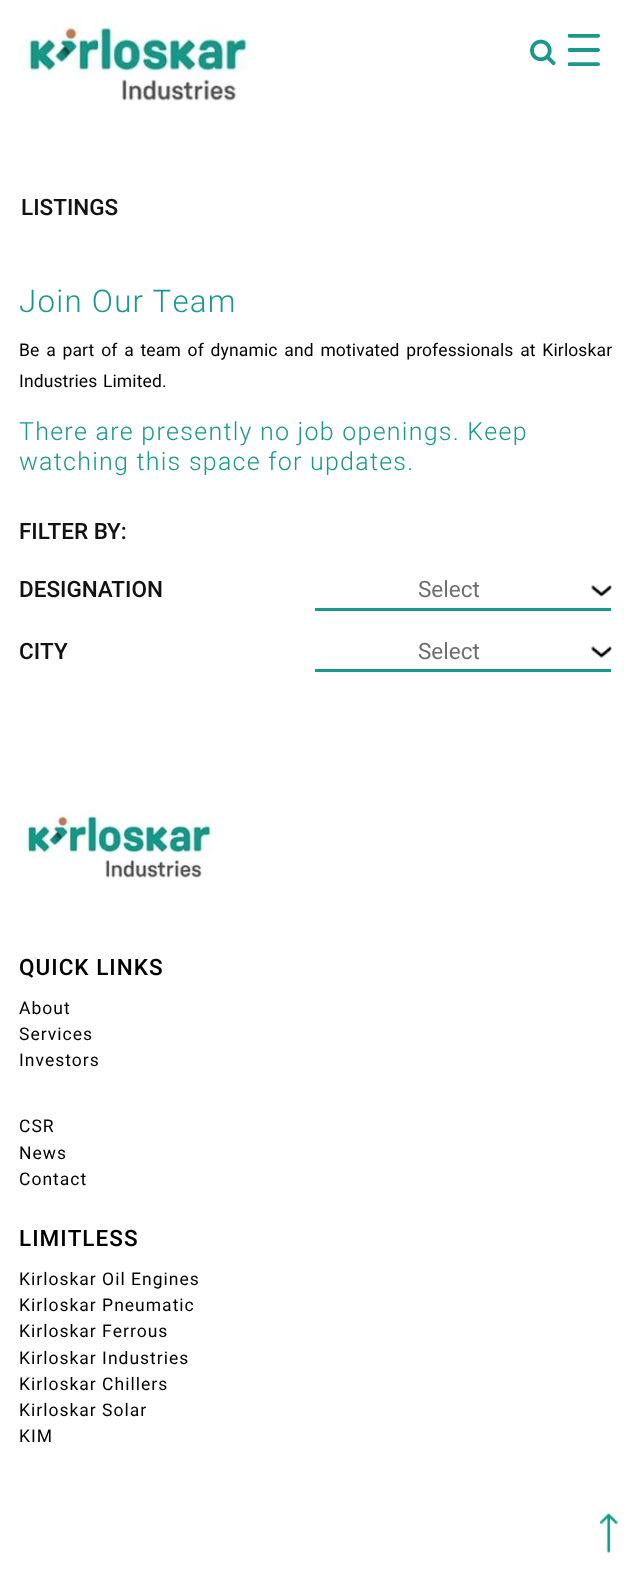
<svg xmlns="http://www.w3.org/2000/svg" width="630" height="1576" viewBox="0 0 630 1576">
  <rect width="100%" height="100%" fill="#fff"/>
  <image x="19" y="19" width="229" height="82" href="img/1.png"/>
  <image x="567" y="34" width="33" height="32" href="img/2.png"/>
  <image x="530" y="39" width="26" height="27" href="img/3.png"/>
  <image x="591" y="585" width="21" height="12" href="img/4.png"/>
  <path d="M315 608h296v3H315z" fill="#19988b"/>
  <image x="591" y="646" width="21" height="12" href="img/5.png"/>
  <path d="M315 669h296v3H315z" fill="#19988b"/>
  <image x="19" y="809" width="193" height="69" href="img/6.png"/>
  <image x="600" y="1513" width="18" height="40" href="img/7.png"/>
  <text x="21" y="215" font-family="Heebo" font-size="22.5" font-weight="500" fill="#111214">LISTINGS</text>
  <text x="19" y="312" font-family="Heebo" font-size="31.25" font-weight="300" letter-spacing="1.25" fill="#19988b">Join Our Team</text>
  <g font-family="Heebo" font-size="17.5" letter-spacing="0.12" fill="#000">
    <text x="19" y="356" word-spacing="2.25">Be a part of a team of dynamic and motivated professionals at Kirloskar</text>
    <text x="19" y="387" word-spacing="1">Industries Limited.</text>
  </g>
  <g font-family="Heebo" font-size="25" font-weight="300" letter-spacing="1.25" fill="#19988b">
    <text x="19" y="440">There are presently no job openings. Keep</text>
    <text x="19" y="470">watching this space for updates.</text>
  </g>
  <g font-family="Heebo" font-size="22.5" font-weight="500" fill="#111214">
    <text x="19" y="539">FILTER BY:</text>
    <text x="19" y="597">DESIGNATION</text>
  </g>
  <text x="418" y="597" font-family="Heebo" font-size="22.5" fill="#6d6e71">Select</text>
  <text x="19" y="659" font-family="Heebo" font-size="22.5" font-weight="500" fill="#111214">CITY</text>
  <text x="418" y="659" font-family="Heebo" font-size="22.5" fill="#6d6e71">Select</text>
  <text x="19" y="975" font-family="Heebo" font-size="22.5" font-weight="500" letter-spacing="1" fill="#000">QUICK LINKS</text>
  <g font-family="Heebo" font-size="17.5" letter-spacing="1" fill="#000">
    <text x="19" y="1014">About</text>
    <text x="19" y="1040">Services</text>
    <text x="19" y="1066">Investors</text>
    <text x="19" y="1132">CSR</text>
    <text x="19" y="1159">News</text>
    <text x="19" y="1185">Contact</text>
  </g>
  <text x="19" y="1246" font-family="Heebo" font-size="22.5" font-weight="500" letter-spacing="1" fill="#000">LIMITLESS</text>
  <g font-family="Heebo" font-size="17.5" letter-spacing="1" fill="#000">
    <text x="19" y="1285">Kirloskar Oil Engines</text>
    <text x="19" y="1311">Kirloskar Pneumatic</text>
    <text x="19" y="1337">Kirloskar Ferrous</text>
    <text x="19" y="1364">Kirloskar Industries</text>
    <text x="19" y="1390">Kirloskar Chillers</text>
    <text x="19" y="1416">Kirloskar Solar</text>
    <text x="19" y="1442">KIM</text>
  </g>
</svg>
